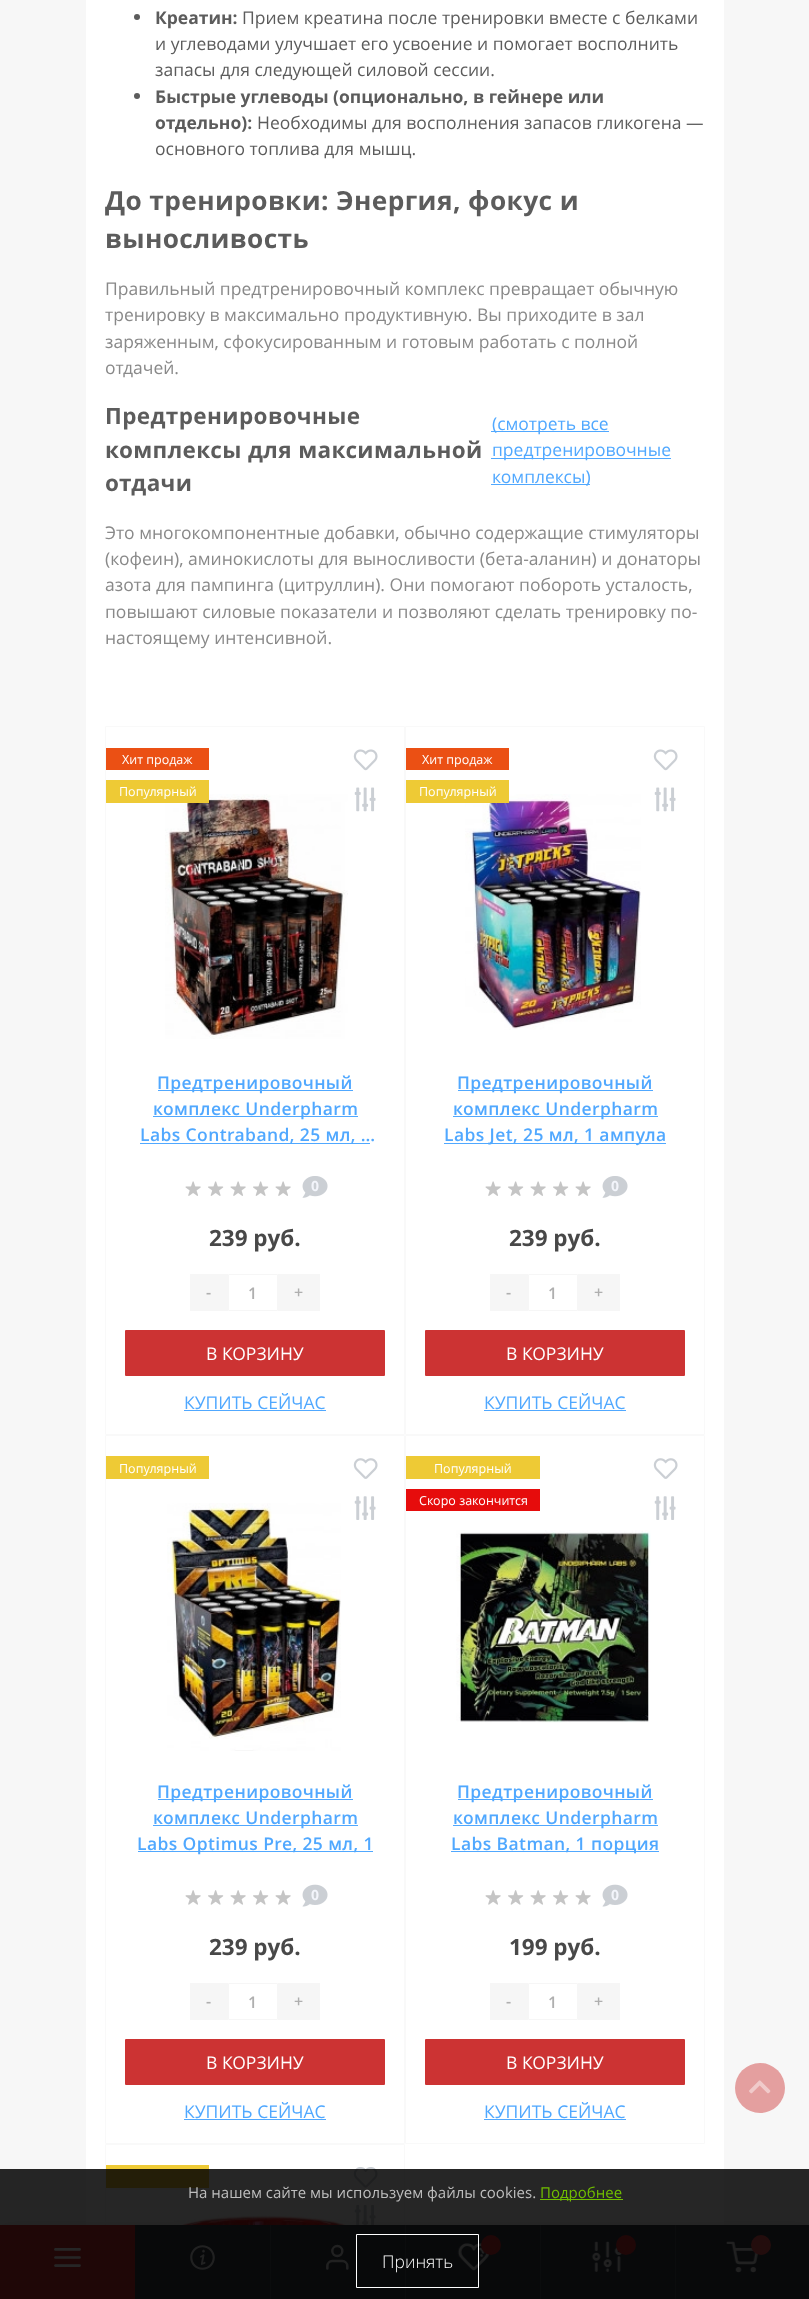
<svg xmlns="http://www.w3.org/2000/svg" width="809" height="2299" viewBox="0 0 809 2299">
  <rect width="100%" height="100%" fill="#f7f7f7"/>
  <path d="M86 0h638v2225H86z" fill="#fff"/>
  <circle cx="137" cy="17" r="3" fill="#5c5c5c"/>
  <circle cx="137" cy="96" r="3" fill="#5c5c5c"/>
  <path d="M491 431h118v1H491z" fill="#50a8ff"/>
  <path d="M491 458h180v1H491z" fill="#50a8ff"/>
  <path d="M491 484h99v1H491z" fill="#50a8ff"/>
  <rect x="105.5" y="726.5" width="299" height="708" rx="0.5" fill="none" stroke="#f9f9f9"/>
  <path d="M106 748h103v22H106z" fill="#eb5014"/>
  <image x="165" y="794" width="183" height="245" href="img/3.png"/>
  <path d="M106 780h103v23H106z" fill="#eeca35"/>
  <image x="353" y="749" width="25" height="22" href="img/1.png"/>
  <image x="354" y="787" width="22" height="25" href="img/2.png"/>
  <path d="M158 1090h195v1H158z" fill="#50a8ff"/>
  <path d="M153 1116h205v1H153z" fill="#50a8ff"/>
  <path d="M140 1143h230v1H140z" fill="#50a8ff"/>
  <image x="185" y="1181" width="16" height="15" href="img/4.png"/>
  <image x="208" y="1181" width="16" height="15" href="img/5.png"/>
  <image x="230" y="1181" width="16" height="15" href="img/4.png"/>
  <image x="253" y="1181" width="16" height="15" href="img/5.png"/>
  <image x="275" y="1181" width="16" height="15" href="img/4.png"/>
  <image x="302" y="1176" width="26" height="22" href="img/6.png"/>
  <path d="M190 1274h38v37H190z" fill="#f6f6f6"/>
  <path d="M228.5 1274.5h49v36H228.5z" fill="none" stroke="#f6f6f6"/>
  <path d="M278 1274h42v37H278z" fill="#f6f6f6"/>
  <rect x="125" y="1330" width="260" height="46" rx="1" fill="#c33"/>
  <path d="M184 1410h142v1H184z" fill="#50a8ff"/>
  <rect x="405.5" y="726.5" width="299" height="708" rx="0.5" fill="none" stroke="#f9f9f9"/>
  <path d="M406 748h103v22H406z" fill="#eb5014"/>
  <image x="465" y="794" width="176" height="236" href="img/7.png"/>
  <path d="M406 780h103v23H406z" fill="#eeca35"/>
  <image x="653" y="749" width="25" height="22" href="img/1.png"/>
  <image x="654" y="787" width="22" height="25" href="img/2.png"/>
  <path d="M458 1090h195v1H458z" fill="#50a8ff"/>
  <path d="M453 1116h205v1H453z" fill="#50a8ff"/>
  <path d="M444 1143h222v1H444z" fill="#50a8ff"/>
  <image x="485" y="1181" width="16" height="15" href="img/4.png"/>
  <image x="508" y="1181" width="16" height="15" href="img/5.png"/>
  <image x="530" y="1181" width="16" height="15" href="img/4.png"/>
  <image x="553" y="1181" width="16" height="15" href="img/5.png"/>
  <image x="575" y="1181" width="16" height="15" href="img/4.png"/>
  <image x="602" y="1176" width="26" height="22" href="img/6.png"/>
  <path d="M490 1274h38v37H490z" fill="#f6f6f6"/>
  <path d="M528.5 1274.5h49v36H528.5z" fill="none" stroke="#f6f6f6"/>
  <path d="M578 1274h42v37H578z" fill="#f6f6f6"/>
  <rect x="425" y="1330" width="260" height="46" rx="1" fill="#c33"/>
  <path d="M484 1410h142v1H484z" fill="#50a8ff"/>
  <rect x="105.5" y="1435.5" width="299" height="708" rx="0.5" fill="none" stroke="#f9f9f9"/>
  <path d="M106 1456h103v23H106z" fill="#eeca35"/>
  <image x="353" y="1458" width="25" height="21" href="img/8.png"/>
  <image x="354" y="1496" width="22" height="24" href="img/9.png"/>
  <image x="167" y="1503" width="174" height="248" href="img/10.png"/>
  <path d="M158 1799h195v1H158z" fill="#50a8ff"/>
  <path d="M153 1825h205v1H153z" fill="#50a8ff"/>
  <path d="M138 1851h235v1H138z" fill="#50a8ff"/>
  <image x="185" y="1890" width="16" height="15" href="img/11.png"/>
  <image x="208" y="1890" width="16" height="15" href="img/12.png"/>
  <image x="230" y="1890" width="16" height="15" href="img/11.png"/>
  <image x="253" y="1890" width="16" height="15" href="img/12.png"/>
  <image x="275" y="1890" width="16" height="15" href="img/11.png"/>
  <image x="302" y="1884" width="26" height="23" href="img/13.png"/>
  <path d="M190 1983h38v37H190z" fill="#f6f6f6"/>
  <path d="M228.5 1983.5h49v36H228.5z" fill="none" stroke="#f6f6f6"/>
  <path d="M278 1983h42v37H278z" fill="#f6f6f6"/>
  <rect x="125" y="2039" width="260" height="46" rx="1" fill="#c33"/>
  <path d="M184 2119h142v1H184z" fill="#50a8ff"/>
  <rect x="405.5" y="1435.5" width="299" height="708" rx="0.5" fill="none" stroke="#f9f9f9"/>
  <path d="M406 1456h134v23H406z" fill="#eeca35"/>
  <path d="M406 1489h134v22H406z" fill="#e60c0c"/>
  <image x="653" y="1458" width="25" height="21" href="img/8.png"/>
  <image x="654" y="1496" width="22" height="24" href="img/9.png"/>
  <image x="456" y="1530" width="195" height="193" href="img/14.png"/>
  <path d="M458 1799h195v1H458z" fill="#50a8ff"/>
  <path d="M453 1825h205v1H453z" fill="#50a8ff"/>
  <path d="M451 1851h208v1H451z" fill="#50a8ff"/>
  <image x="485" y="1890" width="16" height="15" href="img/11.png"/>
  <image x="508" y="1890" width="16" height="15" href="img/12.png"/>
  <image x="530" y="1890" width="16" height="15" href="img/11.png"/>
  <image x="553" y="1890" width="16" height="15" href="img/12.png"/>
  <image x="575" y="1890" width="16" height="15" href="img/11.png"/>
  <image x="602" y="1884" width="26" height="23" href="img/13.png"/>
  <path d="M490 1983h38v37H490z" fill="#f6f6f6"/>
  <path d="M528.5 1983.5h49v36H528.5z" fill="none" stroke="#f6f6f6"/>
  <path d="M578 1983h42v37H578z" fill="#f6f6f6"/>
  <rect x="425" y="2039" width="260" height="46" rx="1" fill="#c33"/>
  <path d="M484 2119h142v1H484z" fill="#50a8ff"/>
  <rect x="105.5" y="2144.5" width="299" height="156" rx="0.5" fill="#fff" stroke="#f9f9f9"/>
  <path d="M106 2165h103v23H106z" fill="#eeca35"/>
  <image x="174" y="2211" width="182" height="14" href="img/15.png"/>
  <image x="353" y="2167" width="25" height="21" href="img/16.png"/>
  <image x="354" y="2205" width="22" height="20" href="img/17.png"/>
  <circle cx="760" cy="2088" r="25" fill="#e49f9f"/>
  <image x="749" y="2080" width="22" height="14" href="img/18.png"/>
  <path d="M0 2230h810v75H0z" fill="#0000001a" filter="blur(9.5px)"/>
  <path d="M135 2225h674v74H135z" fill="#353e48"/>
  <path d="M0 2225h135v74H0z" fill="#c33"/>
  <image x="54" y="2248" width="27" height="19" href="img/19.png"/>
  <image x="190" y="2245" width="25" height="25" href="img/20.png"/>
  <path d="M270 2225h1v74H270z" fill="#49515a"/>
  <image x="326" y="2244" width="23" height="26" href="img/21.png"/>
  <path d="M405 2225h1v74H405z" fill="#49515a"/>
  <image x="457" y="2243" width="33" height="28" href="img/22.png"/>
  <circle cx="491" cy="2245" r="10" fill="#c33"/>
  <path d="M540 2225h1v74H540z" fill="#49515a"/>
  <image x="591" y="2241" width="31" height="31" href="img/23.png"/>
  <circle cx="626" cy="2245" r="10" fill="#c33"/>
  <path d="M675 2225h1v74H675z" fill="#49515a"/>
  <image x="726" y="2241" width="32" height="32" href="img/24.png"/>
  <circle cx="761" cy="2245" r="10" fill="#eb5757"/>
  <path d="M0 2169h809v130H0z" fill="#000000d9"/>
  <path d="M540 2199h83v1H540z" fill="#71be00"/>
  <path d="M356.5 2234.5h122v53H356.5z" fill="none" stroke="#fff"/>
  <text x="155" y="24" font-family="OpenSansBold" font-size="17.5" font-weight="bold" fill="#5c5c5c">Креатин:</text>
  <g font-family="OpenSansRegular" font-size="17.5" fill="#5c5c5c">
    <text x="242" y="24">Прием креатина после тренировки вместе с белками</text>
    <text x="155" y="50">и углеводами улучшает его усвоение и помогает восполнить</text>
    <text x="155" y="76">запасы для следующей силовой сессии.</text>
  </g>
  <g font-family="OpenSansBold" font-size="17.5" font-weight="bold" fill="#5c5c5c">
    <text x="155" y="103">Быстрые углеводы (опционально, в гейнере или</text>
    <text x="155" y="129">отдельно):</text>
  </g>
  <g font-family="OpenSansRegular" font-size="17.5" fill="#5c5c5c">
    <text x="257" y="129">Необходимы для восполнения запасов гликогена —</text>
    <text x="155" y="155">основного топлива для мышц.</text>
  </g>
  <g font-family="OpenSansBold" font-size="26.25" font-weight="bold" letter-spacing="0.4" fill="#5c5c5c">
    <text x="105" y="210">До тренировки: Энергия, фокус и</text>
    <text x="105" y="248">выносливость</text>
  </g>
  <g font-family="OpenSansRegular" font-size="17.5" fill="#898989">
    <text x="105" y="295">Правильный предтренировочный комплекс превращает обычную</text>
    <text x="105" y="321">тренировку в максимально продуктивную. Вы приходите в зал</text>
    <text x="105" y="348">заряженным, сфокусированным и готовым работать с полной</text>
    <text x="105" y="374">отдачей.</text>
  </g>
  <g font-family="OpenSansBold" font-size="22.5" font-weight="bold" letter-spacing="0.4" fill="#5c5c5c">
    <text x="105" y="424">Предтренировочные</text>
    <text x="105" y="458">комплексы для максимальной</text>
    <text x="105" y="491">отдачи</text>
  </g>
  <g font-family="OpenSansRegular" font-size="17.5" fill="#50a8ff">
    <text x="492" y="430">(смотреть все</text>
    <text x="492" y="456">предтренировочные</text>
    <text x="492" y="483">комплексы)</text>
  </g>
  <g font-family="OpenSansRegular" font-size="17.5" fill="#898989">
    <text x="105" y="539">Это многокомпонентные добавки, обычно содержащие стимуляторы</text>
    <text x="105" y="565">(кофеин), аминокислоты для выносливости (бета-аланин) и донаторы</text>
    <text x="105" y="591">азота для пампинга (цитруллин). Они помогают побороть усталость,</text>
    <text x="105" y="618">повышают силовые показатели и позволяют сделать тренировку по-</text>
    <text x="105" y="644">настоящему интенсивной.</text>
  </g>
  <g font-family="OpenSansRegular" font-size="12.5" fill="#fff">
    <text x="122" y="764">Хит продаж</text>
    <text x="119" y="796">Популярный</text>
  </g>
  <g font-family="Open Sans" font-size="17.5" font-weight="600" letter-spacing="0.4" fill="#50a8ff">
    <text x="157" y="1089">Предтренировочный</text>
    <text x="153" y="1115">комплекс Underpharm</text>
    <text x="140" y="1141">Labs Contraband, 25 мл, …</text>
  </g>
  <text x="311" y="1191" font-family="OpenSansBold" font-size="14" font-weight="bold" fill="#f3f5fb">0</text>
  <text x="209" y="1246" font-family="OpenSansBold" font-size="22.5" font-weight="bold" fill="#484848">239 руб.</text>
  <g font-family="Open Sans" font-size="16" font-weight="600" fill="#afafaf">
    <text x="206" y="1298">-</text>
    <text x="248" y="1299">1</text>
    <text x="294" y="1298">+</text>
  </g>
  <text x="206" y="1360" font-family="OpenSansRegular" font-size="17.5" fill="#fff">В КОРЗИНУ</text>
  <text x="184" y="1409" font-family="OpenSansRegular" font-size="17.5" fill="#50a8ff">КУПИТЬ СЕЙЧАС</text>
  <g font-family="OpenSansRegular" font-size="12.5" fill="#fff">
    <text x="422" y="764">Хит продаж</text>
    <text x="419" y="796">Популярный</text>
  </g>
  <g font-family="Open Sans" font-size="17.5" font-weight="600" letter-spacing="0.4" fill="#50a8ff">
    <text x="457" y="1089">Предтренировочный</text>
    <text x="453" y="1115">комплекс Underpharm</text>
    <text x="444" y="1141">Labs Jet, 25 мл, 1 ампула</text>
  </g>
  <text x="611" y="1191" font-family="OpenSansBold" font-size="14" font-weight="bold" fill="#f3f5fb">0</text>
  <text x="509" y="1246" font-family="OpenSansBold" font-size="22.5" font-weight="bold" fill="#484848">239 руб.</text>
  <g font-family="Open Sans" font-size="16" font-weight="600" fill="#afafaf">
    <text x="506" y="1298">-</text>
    <text x="548" y="1299">1</text>
    <text x="594" y="1298">+</text>
  </g>
  <text x="506" y="1360" font-family="OpenSansRegular" font-size="17.5" fill="#fff">В КОРЗИНУ</text>
  <text x="484" y="1409" font-family="OpenSansRegular" font-size="17.5" fill="#50a8ff">КУПИТЬ СЕЙЧАС</text>
  <text x="119" y="1473" font-family="OpenSansRegular" font-size="12.5" fill="#fff">Популярный</text>
  <g font-family="Open Sans" font-size="17.5" font-weight="600" letter-spacing="0.4" fill="#50a8ff">
    <text x="157" y="1798">Предтренировочный</text>
    <text x="153" y="1824">комплекс Underpharm</text>
    <text x="137" y="1850">Labs Optimus Pre, 25 мл, 1</text>
  </g>
  <text x="311" y="1900" font-family="OpenSansBold" font-size="14" font-weight="bold" fill="#f3f5fb">0</text>
  <text x="209" y="1955" font-family="OpenSansBold" font-size="22.5" font-weight="bold" fill="#484848">239 руб.</text>
  <g font-family="Open Sans" font-size="16" font-weight="600" fill="#afafaf">
    <text x="206" y="2007">-</text>
    <text x="248" y="2008">1</text>
    <text x="294" y="2007">+</text>
  </g>
  <text x="206" y="2069" font-family="OpenSansRegular" font-size="17.5" fill="#fff">В КОРЗИНУ</text>
  <text x="184" y="2118" font-family="OpenSansRegular" font-size="17.5" fill="#50a8ff">КУПИТЬ СЕЙЧАС</text>
  <g font-family="OpenSansRegular" font-size="12.5" fill="#fff">
    <text x="434" y="1473">Популярный</text>
    <text x="419" y="1505">Скоро закончится</text>
  </g>
  <g font-family="Open Sans" font-size="17.5" font-weight="600" letter-spacing="0.4" fill="#50a8ff">
    <text x="457" y="1798">Предтренировочный</text>
    <text x="453" y="1824">комплекс Underpharm</text>
    <text x="451" y="1850">Labs Batman, 1 порция</text>
  </g>
  <text x="611" y="1900" font-family="OpenSansBold" font-size="14" font-weight="bold" fill="#f3f5fb">0</text>
  <text x="509" y="1955" font-family="OpenSansBold" font-size="22.5" font-weight="bold" fill="#484848">199 руб.</text>
  <g font-family="Open Sans" font-size="16" font-weight="600" fill="#afafaf">
    <text x="506" y="2007">-</text>
    <text x="548" y="2008">1</text>
    <text x="594" y="2007">+</text>
  </g>
  <text x="506" y="2069" font-family="OpenSansRegular" font-size="17.5" fill="#fff">В КОРЗИНУ</text>
  <text x="484" y="2118" font-family="OpenSansRegular" font-size="17.5" fill="#50a8ff">КУПИТЬ СЕЙЧАС</text>
  <text x="188" y="2198" font-family="OpenSansRegular" font-size="15" fill="#bebebe">На нашем сайте мы используем файлы cookies.</text>
  <text x="540" y="2198" font-family="OpenSansRegular" font-size="15" fill="#71be00">Подробнее</text>
  <text x="382" y="2268" font-family="Open Sans" font-size="17.5" font-weight="300" fill="#fff">Принять</text>
</svg>
